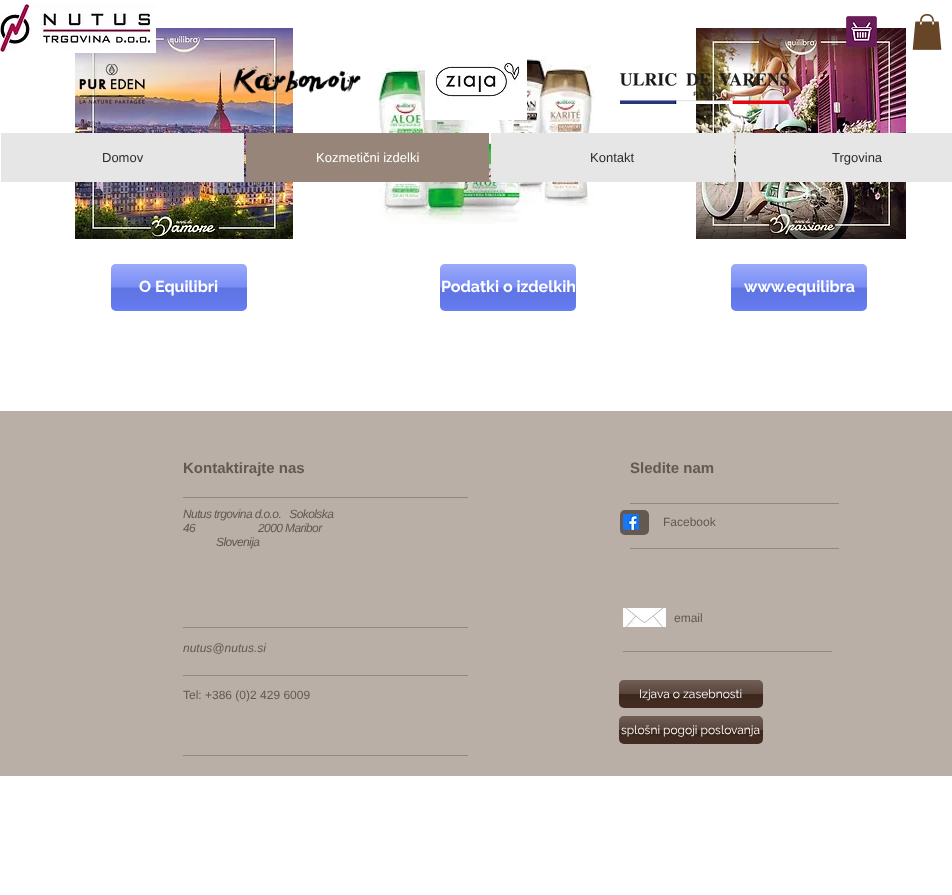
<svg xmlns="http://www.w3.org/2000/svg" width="952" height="895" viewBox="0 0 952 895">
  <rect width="100%" height="100%" fill="#fff"/>
  <image x="75" y="28" width="218" height="211" href="img/8.png"/>
  <image x="0" y="4" width="156" height="49" href="img/1.png"/>
  <image x="696" y="28" width="210" height="211" href="img/10.png"/>
  <image x="846" y="16" width="31" height="31" href="img/2.png"/>
  <image x="912" y="14" width="30" height="36" href="img/3.png"/>
  <image x="79" y="64" width="66" height="40" href="img/4.png"/>
  <image x="233" y="66" width="128" height="29" href="img/5.png"/>
  <image x="377" y="56" width="218" height="168" href="img/9.png"/>
  <image x="425" y="57" width="102" height="63" href="img/6.png"/>
  <image x="620" y="73" width="169" height="31" href="img/7.png"/>
  <path d="M1 133h243v49H1z" fill="#e6e6e6"/>
  <path d="M246 133h243v49H246z" fill="#968578"/>
  <path d="M491 133h243v49H491z" fill="#e6e6e6"/>
  <path d="M736 133h216v49H736z" fill="#e6e6e6"/>
  <rect x="111" y="264" width="136" height="47" rx="5" fill="#677ef5"/>
  <image x="111" y="264" width="136" height="44" href="img/11.png"/>
  <rect x="440" y="264" width="136" height="47" rx="5" fill="#677ef5"/>
  <image x="440" y="264" width="136" height="44" href="img/11.png"/>
  <rect x="731" y="264" width="136" height="47" rx="5" fill="#677ef5"/>
  <image x="731" y="264" width="136" height="44" href="img/11.png"/>
  <path d="M0 411h952v365H0z" fill="#b9afa7"/>
  <path d="M183 497h285v1H183z" fill="#968578"/>
  <path d="M630 503h209v1H630z" fill="#968578"/>
  <rect x="620" y="510" width="29" height="25" rx="5" fill="#645950"/>
  <image x="623" y="514" width="16" height="16" href="img/12.png"/>
  <path d="M630 548h209v1H630z" fill="#968578"/>
  <image x="623" y="608" width="43" height="19" href="img/13.png"/>
  <path d="M183 627h285v1H183z" fill="#968578"/>
  <path d="M623 651h209v1H623z" fill="#968578"/>
  <path d="M183 675h285v1H183z" fill="#968578"/>
  <rect x="619" y="680" width="144" height="28" rx="5" fill="#422b20"/>
  <image x="619" y="680" width="144" height="20" href="img/14.png"/>
  <rect x="619" y="716" width="144" height="28" rx="5" fill="#422b20"/>
  <image x="619" y="716" width="144" height="20" href="img/14.png"/>
  <path d="M183 755h285v1H183z" fill="#968578"/>
  <text x="102" y="162" font-family="Liberation Sans" font-size="13" fill="#322c28">Domov</text>
  <text x="316" y="162" font-family="Liberation Sans" font-size="13" fill="#fff">Kozmetični izdelki</text>
  <g font-family="Liberation Sans" font-size="13" fill="#322c28">
    <text x="590" y="162">Kontakt</text>
    <text x="832" y="162">Trgovina</text>
  </g>
  <g font-family="Raleway" font-size="16" font-weight="bold" fill="#fff">
    <text x="139" y="292">O Equilibri</text>
    <text x="441" y="292">Podatki o izdelkih</text>
    <text x="744" y="292">www.equilibra</text>
  </g>
  <g font-family="Liberation Sans" font-size="15" font-weight="bold" fill="#645950">
    <text x="183" y="473">Kontaktirajte nas</text>
    <text x="630" y="473">Sledite nam</text>
  </g>
  <g font-family="Liberation Sans" font-size="12" font-style="italic" letter-spacing="-0.6" fill="#645950">
    <text x="183" y="518" xml:space="preserve">Nutus trgovina d.o.o.   Sokolska</text>
    <text x="183" y="532" xml:space="preserve">46                       2000 Maribor</text>
    <text x="216" y="546">Slovenija</text>
  </g>
  <g font-family="Liberation Sans" font-size="12" fill="#645950">
    <text x="663" y="526">Facebook</text>
    <text x="674" y="622">email</text>
  </g>
  <text x="183" y="652" font-family="Liberation Sans" font-size="12" font-style="italic" fill="#645950">nutus@nutus.si</text>
  <text x="183" y="699" font-family="Liberation Sans" font-size="12" fill="#645950">Tel: +386 (0)2 429 6009</text>
  <g font-family="Raleway" font-size="12" fill="#fff">
    <text x="639" y="698">Izjava o zasebnosti</text>
    <text x="621" y="734">splošni pogoji poslovanja</text>
  </g>
</svg>
